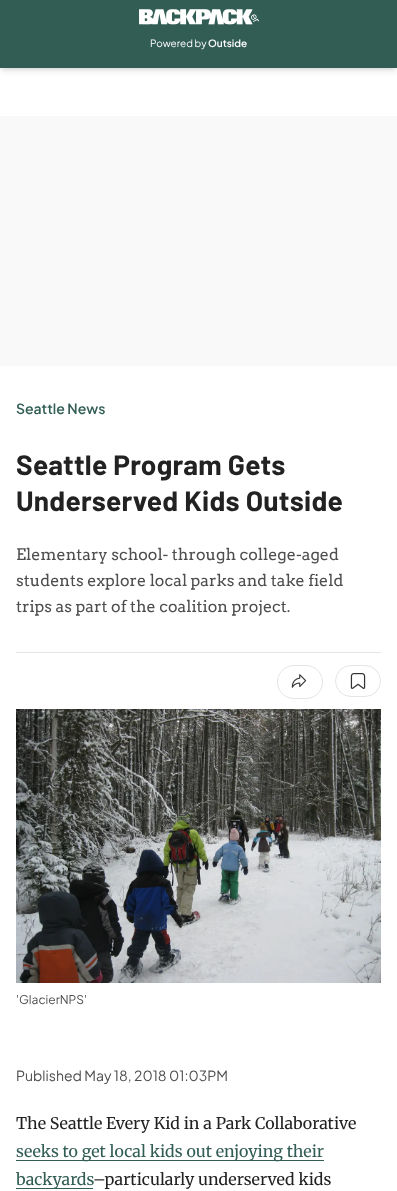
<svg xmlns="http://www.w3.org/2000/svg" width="397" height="1191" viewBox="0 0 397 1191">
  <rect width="100%" height="100%" fill="#fff"/>
  <path d="M2 4h393v64H2z" fill="#0000001a" filter="blur(2px)"/>
  <path d="M1 5h395v66H1z" fill="#0000001a" filter="blur(3px)"/>
  <path d="M0 0h397v68H0z" fill="#325d55"/>
  <image x="139" y="9" width="120" height="16" href="img/1.png"/>
  <path d="M0 116h397v250H0z" fill="#f9f9f9"/>
  <path d="M16 652h365v1H16z" fill="#e5e5e5"/>
  <rect x="277.5" y="665.5" width="45" height="33" rx="16.5" fill="none" stroke="#e5e5e5"/>
  <image x="291" y="674" width="16" height="14" href="img/2.png"/>
  <rect x="335.5" y="665.5" width="45" height="31" rx="15.5" fill="none" stroke="#e5e5e5"/>
  <image x="350" y="673" width="16" height="16" href="img/3.png"/>
  <image x="16" y="709" width="365" height="274" href="img/4.png"/>
  <path d="M16 1160h308v1H16z" fill="#325d55"/>
  <path d="M16 1188h77v1H16z" fill="#325d55"/>
  <text x="150" y="47" font-family="Plus Jakarta Sans" font-size="10" fill="#fff">Powered by</text>
  <text x="208" y="47" font-family="Plus Jakarta Sans" font-size="10" font-weight="600" fill="#fff">Outside</text>
  <text x="16" y="414" font-family="Plus Jakarta Sans" font-size="14" font-weight="600" fill="#325d55">Seattle News</text>
  <g font-family="Barlow" font-size="28" font-weight="bold" letter-spacing="0.25" fill="#222">
    <text x="16" y="475">Seattle Program Gets</text>
    <text x="16" y="511">Underserved Kids Outside</text>
  </g>
  <g font-family="Arvo" font-size="16" fill="#4e4e4e">
    <text x="16" y="560">Elementary school- through college-aged</text>
    <text x="16" y="586">students explore local parks and take field</text>
    <text x="16" y="612">trips as part of the coalition project.</text>
  </g>
  <text x="16" y="1004" font-family="Plus Jakarta Sans" font-size="12" fill="#4e4e4e">'GlacierNPS'</text>
  <text x="16" y="1081" font-family="Plus Jakarta Sans" font-size="14" fill="#4e4e4e">Published May 18, 2018 01:03PM</text>
  <text x="16" y="1129" font-family="Merriweather" font-size="16" fill="#222">The Seattle Every Kid in a Park Collaborative</text>
  <g font-family="Merriweather" font-size="16" fill="#325d55">
    <text x="16" y="1157">seeks to get local kids out enjoying their</text>
    <text x="16" y="1185">backyards</text>
  </g>
  <text x="93" y="1185" font-family="Merriweather" font-size="16" fill="#222">–particularly underserved kids</text>
</svg>
